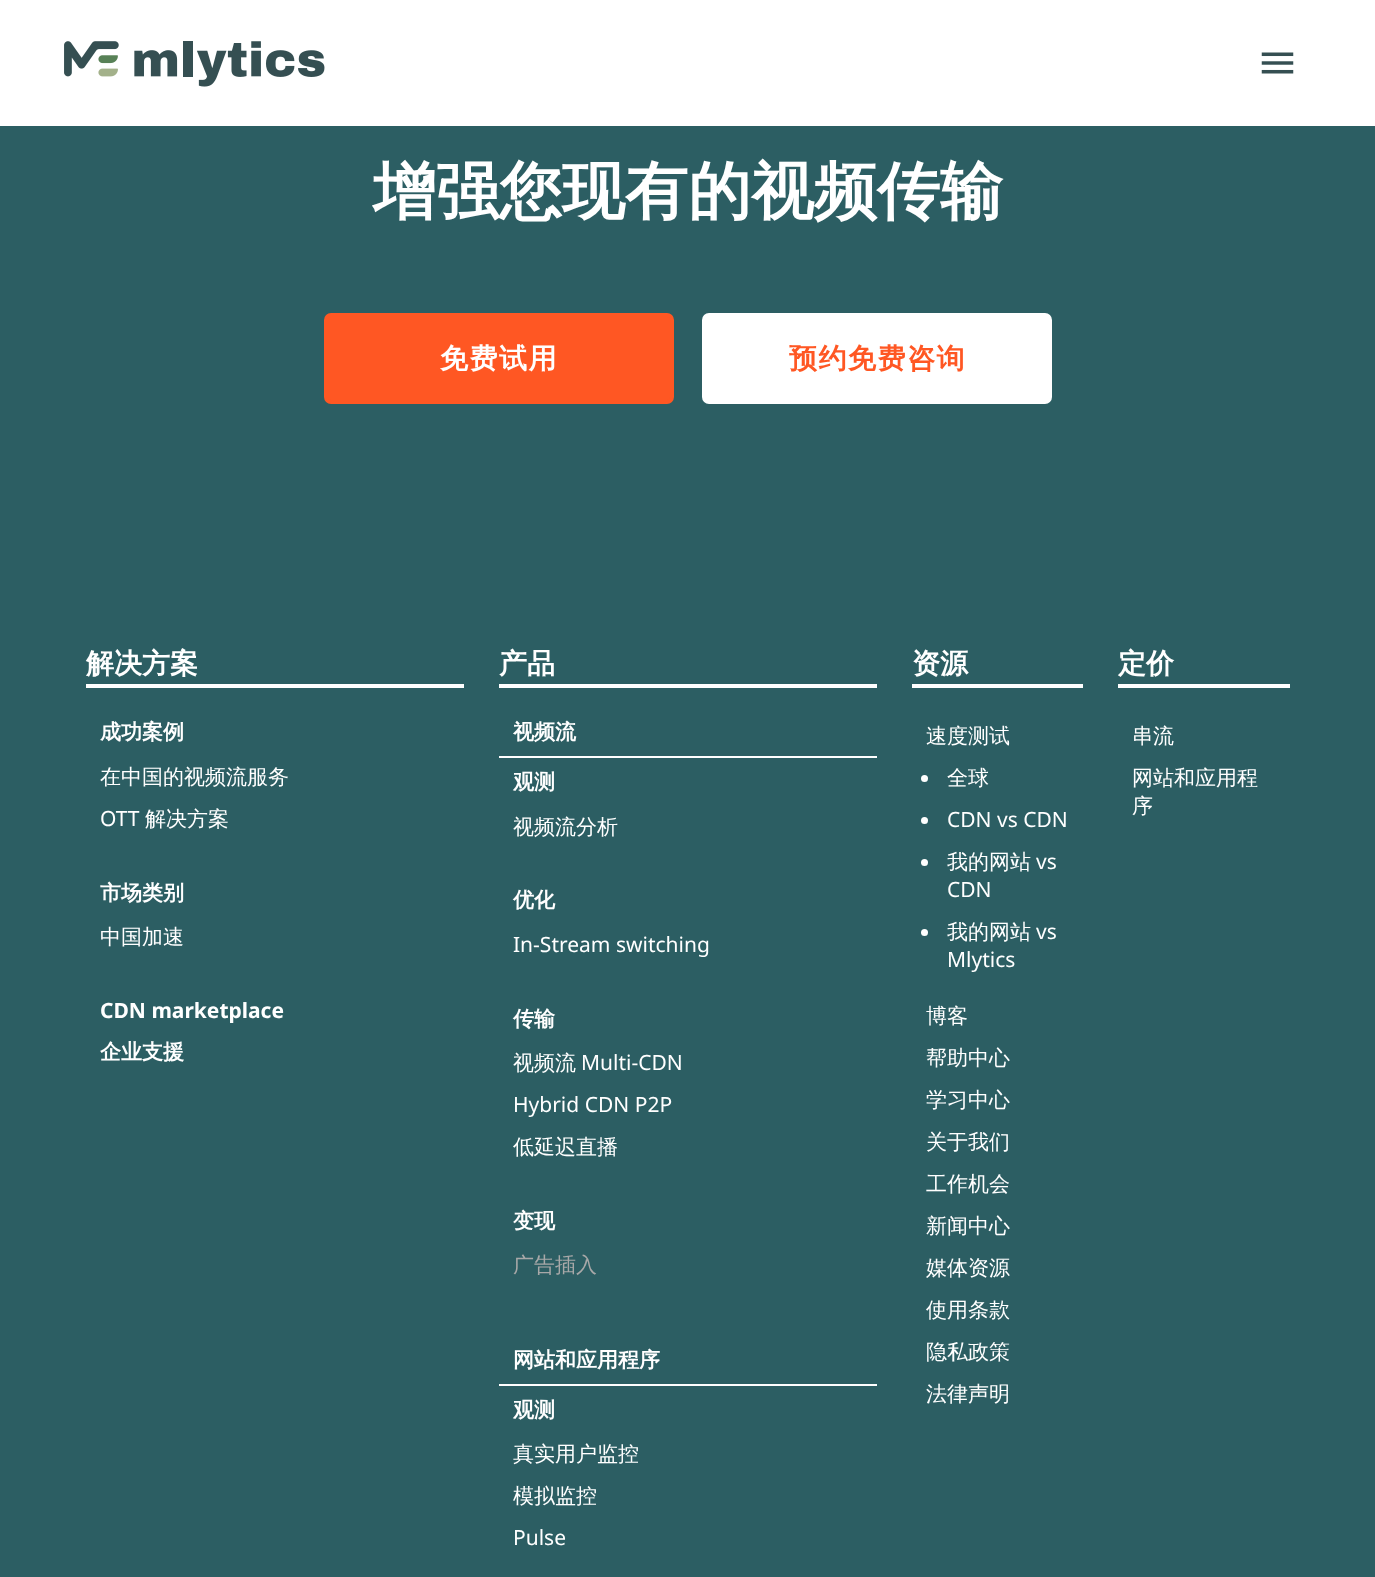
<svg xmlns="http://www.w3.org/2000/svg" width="1375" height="1577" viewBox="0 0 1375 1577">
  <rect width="100%" height="100%" fill="#2c5e63"/>
  <path d="M0 0h1375v126H0z" fill="#fff"/>
  <image x="64" y="41" width="261" height="46" href="img/1.png"/>
  <image x="1261" y="52" width="33" height="22" href="img/2.png"/>
  <rect x="326" y="315" width="346" height="87" rx="5" fill="#ff5723" stroke="#ff5723" stroke-width="4"/>
  <rect x="702" y="313" width="350" height="91" rx="7" fill="#fff"/>
  <path d="M86 684h378v4H86z" fill="#fff"/>
  <path d="M499 684h378v4H499z" fill="#fff"/>
  <path d="M499 756h378v2H499z" fill="#fff"/>
  <path d="M499 1384h378v2H499z" fill="#fff"/>
  <path d="M912 684h171v4H912z" fill="#fff"/>
  <circle cx="924.5" cy="778.5" r="3.5" fill="#fff"/>
  <circle cx="924.5" cy="820.5" r="3.5" fill="#fff"/>
  <circle cx="924.5" cy="862.5" r="3.5" fill="#fff"/>
  <circle cx="924.5" cy="932.5" r="3.5" fill="#fff"/>
  <path d="M1118 684h172v4H1118z" fill="#fff"/>
  <text x="373" y="213" font-family="WenQuanYi Zen Hei" font-size="63" font-weight="bold" fill="#fff">增强您现有的视频传输</text>
  <text x="440" y="368" font-family="WenQuanYi Zen Hei" font-size="28" font-weight="bold" letter-spacing="1.5" fill="#fff">免费试用</text>
  <text x="789" y="368" font-family="WenQuanYi Zen Hei" font-size="28" font-weight="bold" letter-spacing="1.5" fill="#ff5723">预约免费咨询</text>
  <text x="86" y="673" font-family="WenQuanYi Zen Hei" font-size="28" font-weight="bold" fill="#fff">解决方案</text>
  <text x="100" y="739" font-family="WenQuanYi Zen Hei" font-size="21" font-weight="bold" fill="#fff">成功案例</text>
  <text x="100" y="784" font-family="WenQuanYi Zen Hei" font-size="21" font-weight="500" fill="#fff">在中国的视频流服务</text>
  <text x="100" y="826" font-family="Noto Sans" font-size="21" fill="#fff">OTT</text>
  <text x="145" y="826" font-family="WenQuanYi Zen Hei" font-size="21" font-weight="500" fill="#fff">解决方案</text>
  <text x="100" y="900" font-family="WenQuanYi Zen Hei" font-size="21" font-weight="bold" fill="#fff">市场类别</text>
  <text x="100" y="944" font-family="WenQuanYi Zen Hei" font-size="21" font-weight="500" fill="#fff">中国加速</text>
  <text x="100" y="1018" font-family="Noto Sans" font-size="21" font-weight="bold" fill="#fff">CDN marketplace</text>
  <text x="100" y="1059" font-family="WenQuanYi Zen Hei" font-size="21" font-weight="bold" fill="#fff">企业支援</text>
  <text x="499" y="673" font-family="WenQuanYi Zen Hei" font-size="28" font-weight="bold" fill="#fff">产品</text>
  <g font-family="WenQuanYi Zen Hei" font-size="21" font-weight="bold" fill="#fff">
    <text x="513" y="739">视频流</text>
    <text x="513" y="789">观测</text>
  </g>
  <text x="513" y="834" font-family="WenQuanYi Zen Hei" font-size="21" font-weight="500" fill="#fff">视频流分析</text>
  <text x="513" y="907" font-family="WenQuanYi Zen Hei" font-size="21" font-weight="bold" fill="#fff">优化</text>
  <text x="513" y="952" font-family="Noto Sans" font-size="21" fill="#fff">In-Stream switching</text>
  <text x="513" y="1026" font-family="WenQuanYi Zen Hei" font-size="21" font-weight="bold" fill="#fff">传输</text>
  <text x="513" y="1070" font-family="WenQuanYi Zen Hei" font-size="21" font-weight="500" fill="#fff">视频流</text>
  <g font-family="Noto Sans" font-size="21" fill="#fff">
    <text x="581" y="1070">Multi-CDN</text>
    <text x="513" y="1112">Hybrid CDN P2P</text>
  </g>
  <text x="513" y="1154" font-family="WenQuanYi Zen Hei" font-size="21" font-weight="500" fill="#fff">低延迟直播</text>
  <text x="513" y="1228" font-family="WenQuanYi Zen Hei" font-size="21" font-weight="bold" fill="#fff">变现</text>
  <text x="513" y="1272" font-family="WenQuanYi Zen Hei" font-size="21" font-weight="500" fill="#a8a8a8">广告插入</text>
  <g font-family="WenQuanYi Zen Hei" font-size="21" font-weight="bold" fill="#fff">
    <text x="513" y="1367">网站和应用程序</text>
    <text x="513" y="1417">观测</text>
  </g>
  <g font-family="WenQuanYi Zen Hei" font-size="21" font-weight="500" fill="#fff">
    <text x="513" y="1461">真实用户监控</text>
    <text x="513" y="1503">模拟监控</text>
  </g>
  <text x="513" y="1545" font-family="Noto Sans" font-size="21" fill="#fff">Pulse</text>
  <text x="912" y="673" font-family="WenQuanYi Zen Hei" font-size="28" font-weight="bold" fill="#fff">资源</text>
  <g font-family="WenQuanYi Zen Hei" font-size="21" font-weight="500" fill="#fff">
    <text x="926" y="743">速度测试</text>
    <text x="947" y="785">全球</text>
  </g>
  <text x="947" y="827" font-family="Noto Sans" font-size="21" fill="#fff">CDN vs CDN</text>
  <text x="947" y="869" font-family="WenQuanYi Zen Hei" font-size="21" font-weight="500" fill="#fff">我的网站</text>
  <g font-family="Noto Sans" font-size="21" fill="#fff">
    <text x="1036" y="869">vs</text>
    <text x="947" y="897">CDN</text>
  </g>
  <text x="947" y="939" font-family="WenQuanYi Zen Hei" font-size="21" font-weight="500" fill="#fff">我的网站</text>
  <g font-family="Noto Sans" font-size="21" fill="#fff">
    <text x="1036" y="939">vs</text>
    <text x="947" y="967">Mlytics</text>
  </g>
  <g font-family="WenQuanYi Zen Hei" font-size="21" font-weight="500" fill="#fff">
    <text x="926" y="1023">博客</text>
    <text x="926" y="1065">帮助中心</text>
    <text x="926" y="1107">学习中心</text>
    <text x="926" y="1149">关于我们</text>
    <text x="926" y="1191">工作机会</text>
    <text x="926" y="1233">新闻中心</text>
    <text x="926" y="1275">媒体资源</text>
    <text x="926" y="1317">使用条款</text>
    <text x="926" y="1359">隐私政策</text>
    <text x="926" y="1401">法律声明</text>
  </g>
  <text x="1118" y="673" font-family="WenQuanYi Zen Hei" font-size="28" font-weight="bold" fill="#fff">定价</text>
  <g font-family="WenQuanYi Zen Hei" font-size="21" font-weight="500" fill="#fff">
    <text x="1132" y="743">串流</text>
    <text x="1132" y="785">网站和应用程</text>
    <text x="1132" y="813">序</text>
  </g>
</svg>
